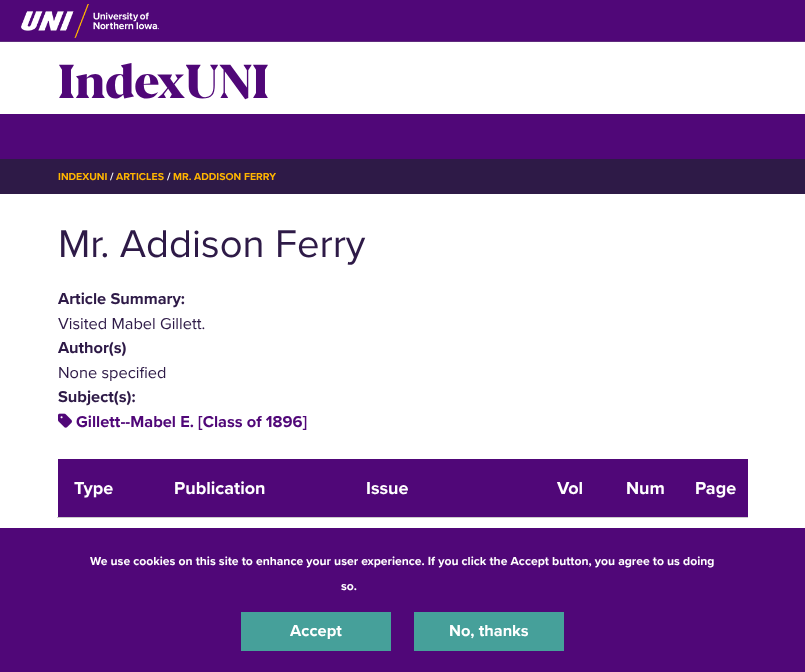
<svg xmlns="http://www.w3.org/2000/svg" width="805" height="672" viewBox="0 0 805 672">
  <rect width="100%" height="100%" fill="#fff"/>
  <path d="M0 0h805v41H0z" fill="#500778"/>
  <path d="M0 41h805v1H0z" fill="#602c7e"/>
  <image x="21" y="4" width="138" height="34" href="img/1.png"/>
  <path d="M0 114h805v45H0z" fill="#500778"/>
  <path d="M0 159h805v35H0z" fill="#2e1a47"/>
  <image x="58" y="413" width="14" height="15" href="img/2.png"/>
  <path d="M57 517h691v1H57z" fill="#ccc"/>
  <path d="M58 459h690v58H58z" fill="#500778"/>
  <path d="M0 528h805v144H0z" fill="#500778"/>
  <path d="M241 612h150v39H241z" fill="#46a09a"/>
  <path d="M414 612h150v39H414z" fill="#46a09a"/>
  <text x="58" y="98" font-family="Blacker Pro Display" font-size="47.25" font-weight="900" fill="#500778">IndexUNI</text>
  <text x="58" y="180" font-family="Proxima Nova" font-size="10.5" font-weight="bold" fill="#ffb500">INDEXUNI</text>
  <text x="110" y="180" font-family="Proxima Nova" font-size="10.5" font-weight="bold" fill="#fff">/</text>
  <text x="116" y="180" font-family="Proxima Nova" font-size="10.5" font-weight="bold" fill="#ffb500">ARTICLES</text>
  <text x="167" y="180" font-family="Proxima Nova" font-size="10.5" font-weight="bold" fill="#fff">/</text>
  <text x="173" y="180" font-family="Proxima Nova" font-size="10.5" font-weight="bold" fill="#ffb500">MR. ADDISON FERRY</text>
  <text x="58" y="257" font-family="Proxima Nova" font-size="40" fill="#2e1a47">Mr. Addison Ferry</text>
  <text x="58" y="304" font-family="Proxima Nova" font-size="16.4" font-weight="bold" fill="#2e1a47">Article Summary:</text>
  <text x="58" y="329" font-family="Proxima Nova" font-size="16.4" fill="#2e1a47">Visited Mabel Gillett.</text>
  <text x="58" y="353" font-family="Proxima Nova" font-size="16.4" font-weight="bold" fill="#2e1a47">Author(s)</text>
  <text x="58" y="378" font-family="Proxima Nova" font-size="16.4" fill="#2e1a47">None specified</text>
  <text x="58" y="402" font-family="Proxima Nova" font-size="16.4" font-weight="bold" fill="#2e1a47">Subject(s):</text>
  <text x="76" y="427" font-family="Proxima Nova" font-size="16.4" font-weight="bold" fill="#500778">Gillett--Mabel E. [Class of 1896]</text>
  <g font-family="Proxima Nova" font-size="18" font-weight="bold" fill="#fff">
    <text x="74" y="494">Type</text>
    <text x="174" y="494">Publication</text>
    <text x="366" y="494">Issue</text>
    <text x="557" y="494">Vol</text>
    <text x="626" y="494">Num</text>
    <text x="695" y="494">Page</text>
  </g>
  <g font-family="Proxima Nova" font-size="12.18" font-weight="bold" fill="#fff">
    <text x="90" y="565">We use cookies on this site to enhance your user experience. If you click the Accept button, you agree to us doing</text>
    <text x="341" y="590">so.</text>
  </g>
  <g font-family="Proxima Nova" font-size="16.4" font-weight="bold" fill="#fff">
    <text x="290" y="636">Accept</text>
    <text x="449" y="636">No, thanks</text>
  </g>
</svg>
